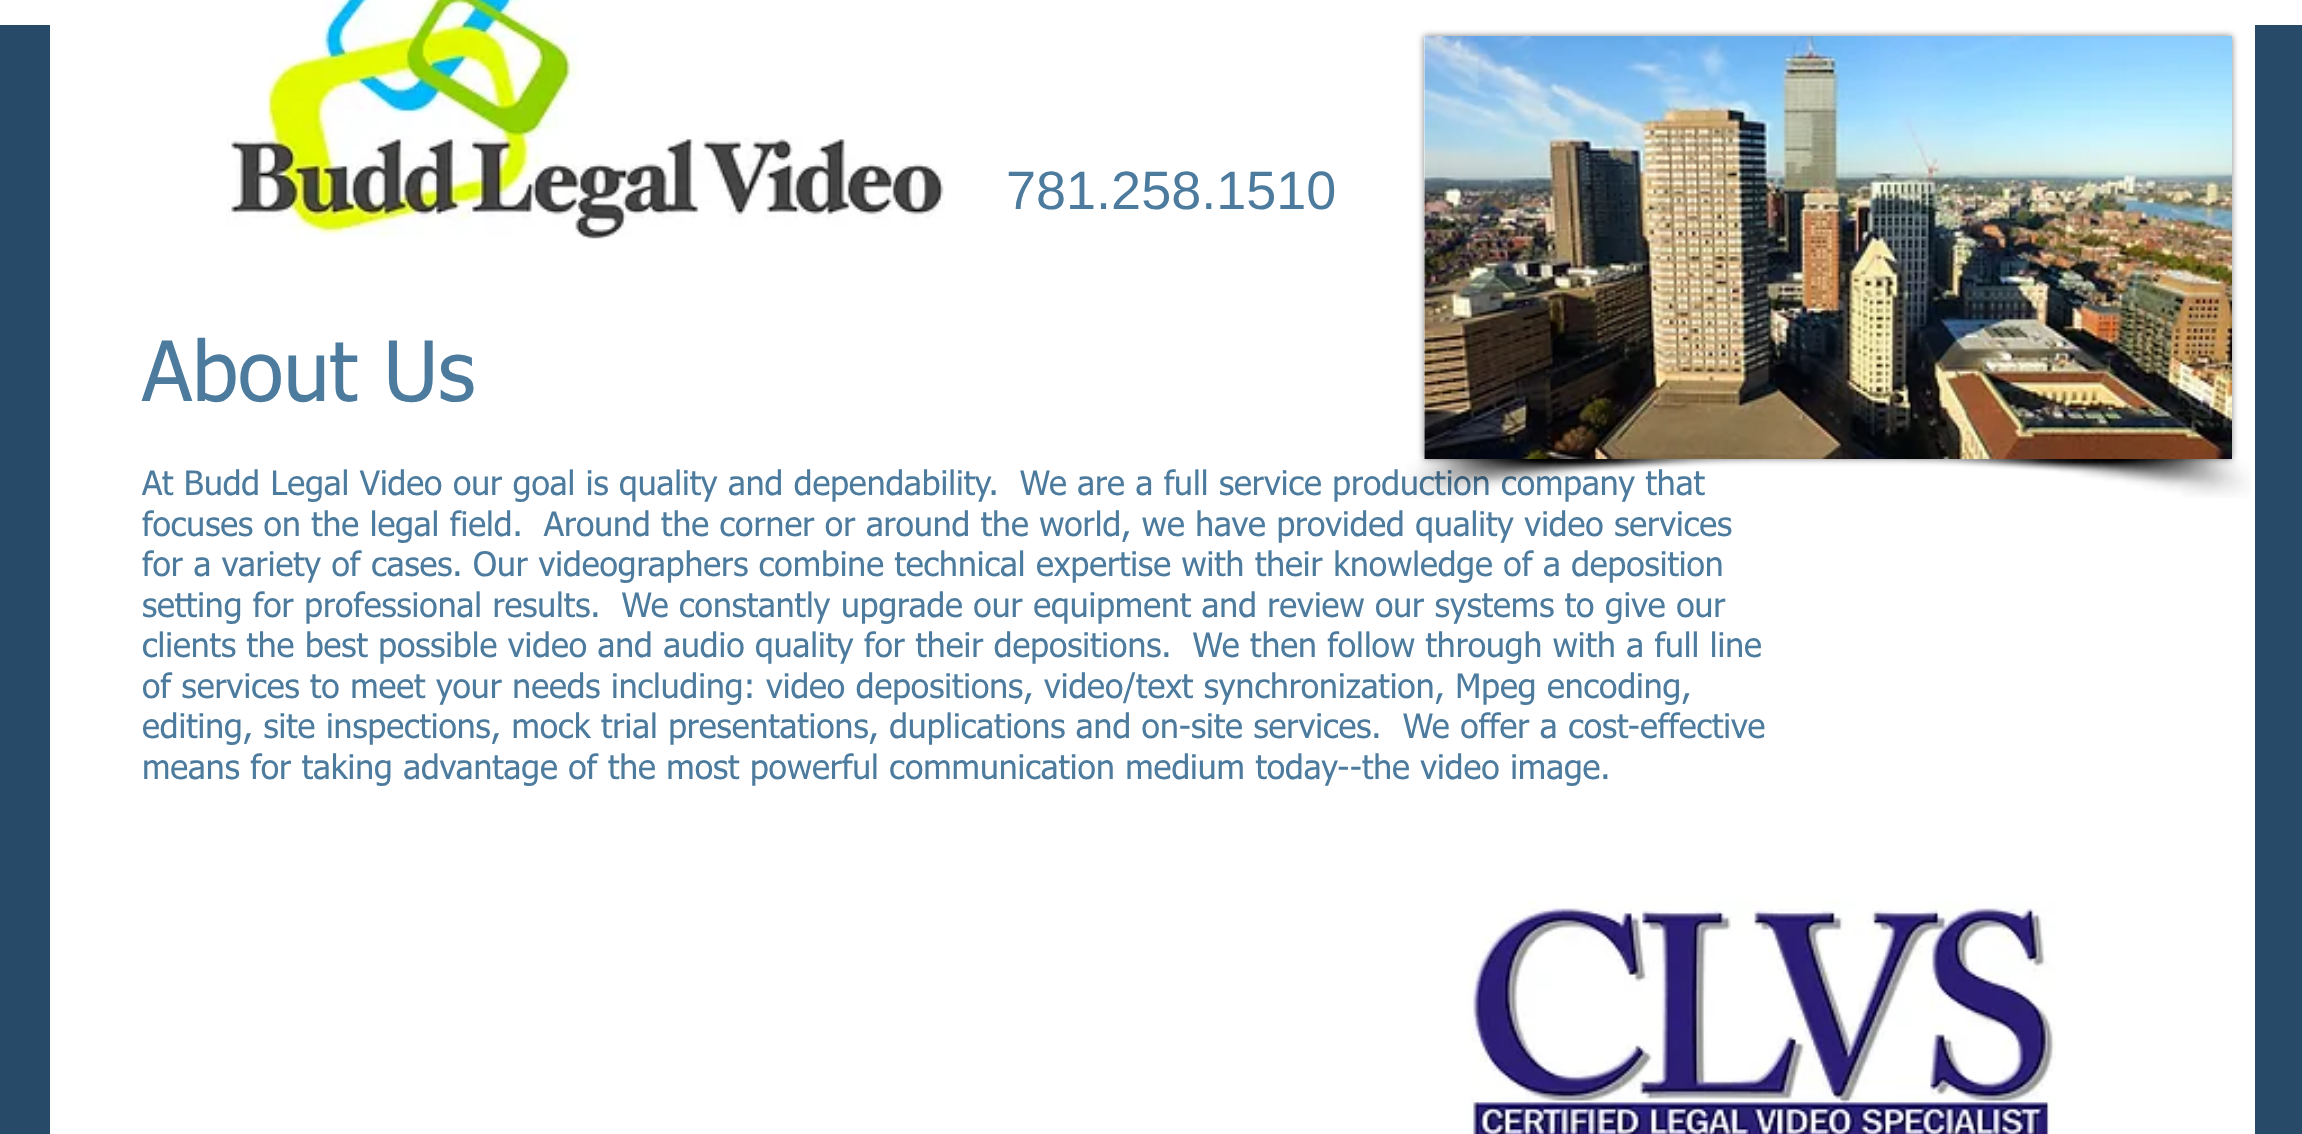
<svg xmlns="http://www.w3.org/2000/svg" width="2302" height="1134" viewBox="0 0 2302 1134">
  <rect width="100%" height="100%" fill="#264a68"/>
  <path d="M0 0h2302v25H0z" fill="#fff"/>
  <path d="M50 25h2205v1109H50z" fill="#fff"/>
  <image x="226" y="0" width="719" height="239" href="img/1.png"/>
  <path d="M1424 36h808v423H1424z" fill="#00000080" filter="blur(3.5px)"/>
  <path d="M1424 36h1v423H1424z" fill="#fff"/>
  <image x="1424" y="36" width="808" height="423" href="img/2.png"/>
  <image x="1906" y="459" width="345" height="39" href="img/4.png"/>
  <image x="1467" y="900" width="589" height="234" href="img/5.png"/>
  <text x="1006" y="209" font-family="Liberation Sans" font-size="54" fill="#4c7b9e">781.258.1510</text>
  <text x="142" y="401" font-family="tahoma" font-size="83.25" fill="#4c7b9e">About Us</text>
  <text x="142" y="495" font-family="tahoma" font-size="33.75" fill="#4c7b9e" xml:space="preserve">At Budd Legal Video our goal is quality and dependability.  We are a full service production company that</text>
  <image x="1405" y="459" width="345" height="40" href="img/3.png"/>
  <g font-family="tahoma" font-size="33.75" fill="#4c7b9e">
    <text x="142" y="536" xml:space="preserve">focuses on the legal field.  Around the corner or around the world, we have provided quality video services</text>
    <text x="142" y="576">for a variety of cases. Our videographers combine technical expertise with their knowledge of a deposition</text>
    <text x="142" y="617" xml:space="preserve">setting for professional results.  We constantly upgrade our equipment and review our systems to give our</text>
    <text x="142" y="657" xml:space="preserve">clients the best possible video and audio quality for their depositions.  We then follow through with a full line</text>
    <text x="142" y="698">of services to meet your needs including: video depositions, video/text synchronization, Mpeg encoding,</text>
    <text x="142" y="738" xml:space="preserve">editing, site inspections, mock trial presentations, duplications and on-site services.  We offer a cost-effective</text>
    <text x="142" y="779">means for taking advantage of the most powerful communication medium today--the video image.</text>
  </g>
</svg>
